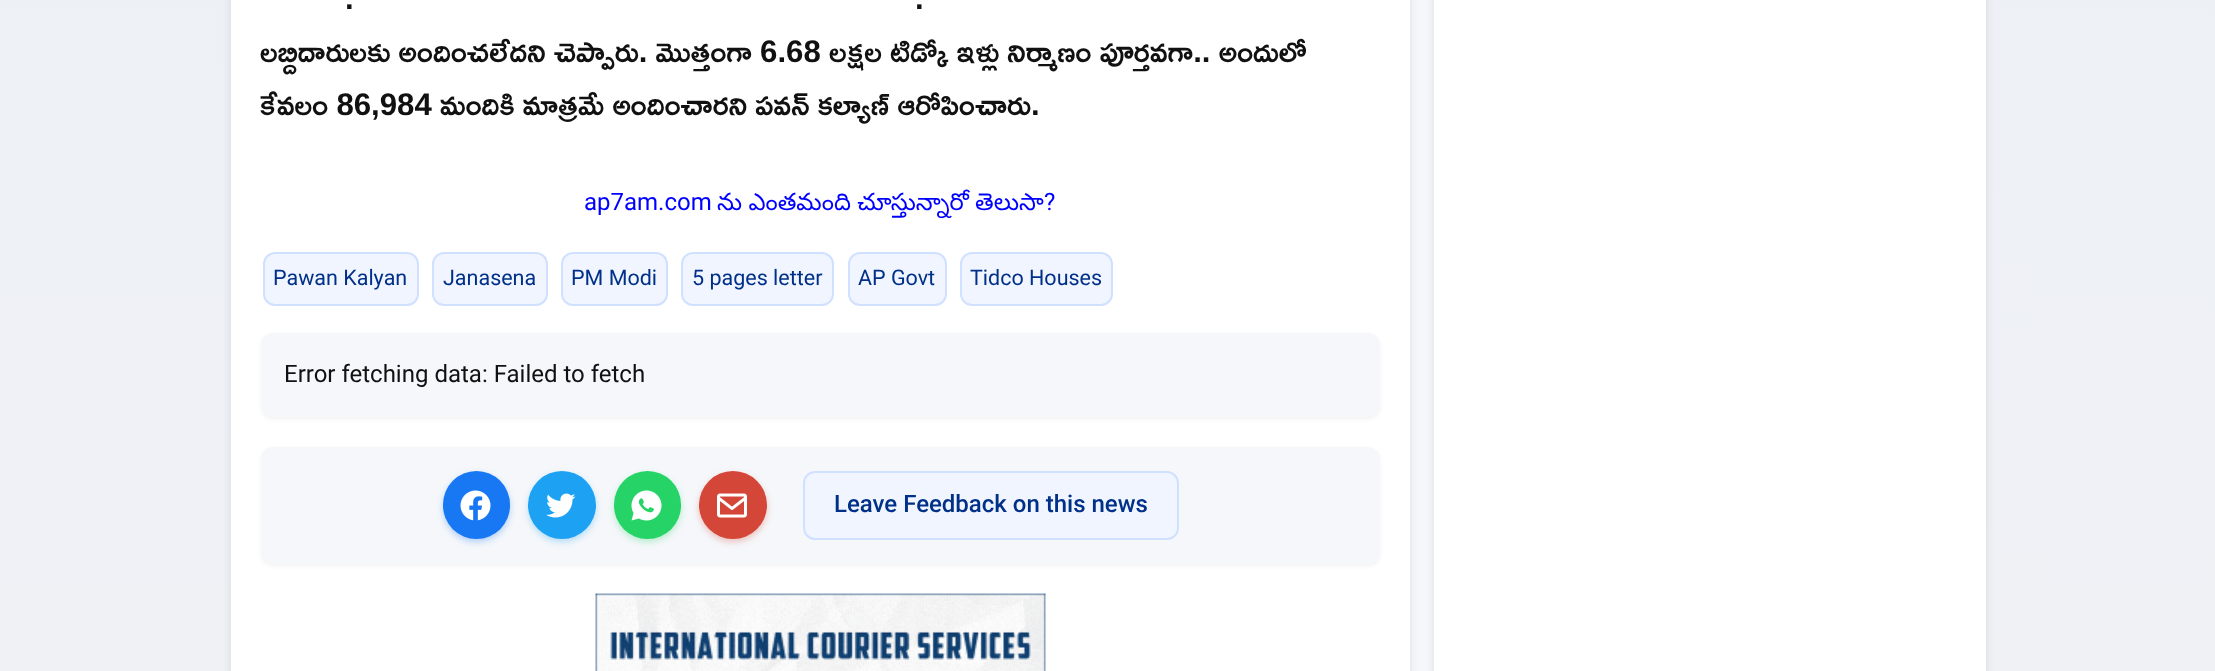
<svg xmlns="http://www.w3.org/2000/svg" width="2215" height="671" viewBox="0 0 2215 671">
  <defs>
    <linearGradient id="g1" gradientUnits="userSpaceOnUse" x1="1108" y1="-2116" x2="1108" y2="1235"><stop offset="0" stop-color="#e8edf5"/><stop offset="1" stop-color="#f0f2f5"/></linearGradient>
  </defs>
  <rect width="100%" height="100%" fill="#fff"/>
  <path d="M0 0h2215v671H0z" fill="url(#g1)"/>
  <path d="M1410 0h24v671H1410z" fill="#f5f7fa"/>
  <rect x="231" y="-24" width="1179" height="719" rx="12" fill="#0000001a" filter="blur(4px)"/>
  <path d="M231 0h1179v671H231z" fill="#fff"/>
  <rect x="264" y="253" width="154" height="52" rx="11" fill="#f0f5ff" stroke="#d0e1ff" stroke-width="2"/>
  <rect x="433" y="253" width="114" height="52" rx="11" fill="#f0f5ff" stroke="#d0e1ff" stroke-width="2"/>
  <rect x="562" y="253" width="105" height="52" rx="11" fill="#f0f5ff" stroke="#d0e1ff" stroke-width="2"/>
  <rect x="682" y="253" width="151" height="52" rx="11" fill="#f0f5ff" stroke="#d0e1ff" stroke-width="2"/>
  <rect x="849" y="253" width="97" height="52" rx="11" fill="#f0f5ff" stroke="#d0e1ff" stroke-width="2"/>
  <rect x="961" y="253" width="151" height="52" rx="11" fill="#f0f5ff" stroke="#d0e1ff" stroke-width="2"/>
  <rect x="261" y="335" width="1119" height="84" rx="12" fill="#0000000d" filter="blur(2px)"/>
  <rect x="261" y="333" width="1119" height="84" rx="12" fill="#f5f7fa"/>
  <rect x="261" y="449" width="1119" height="117" rx="12" fill="#0000000d" filter="blur(2px)"/>
  <rect x="261" y="447" width="1119" height="117" rx="12" fill="#f5f7fa"/>
  <rect x="443" y="474" width="67" height="68" rx="33.5" fill="#1877f24d" filter="blur(3px)"/>
  <rect x="443" y="471" width="67" height="68" rx="33.5" fill="#1877f2"/>
  <image x="460" y="490" width="31" height="31" href="img/1.png"/>
  <rect x="528" y="474" width="68" height="68" rx="34" fill="#1da1f24d" filter="blur(3px)"/>
  <circle cx="562" cy="505" r="34" fill="#1da1f2"/>
  <image x="546" y="493" width="30" height="25" href="img/2.png"/>
  <rect x="614" y="474" width="67" height="68" rx="33.5" fill="#25d3664d" filter="blur(3px)"/>
  <rect x="614" y="471" width="67" height="68" rx="33.5" fill="#25d366"/>
  <image x="631" y="490" width="31" height="31" href="img/3.png"/>
  <rect x="699" y="474" width="68" height="68" rx="34" fill="#d446384d" filter="blur(3px)"/>
  <circle cx="733" cy="505" r="34" fill="#d44638"/>
  <image x="717" y="493" width="30" height="25" href="img/4.png"/>
  <rect x="804" y="472" width="374" height="67" rx="11" fill="#f0f5ff" stroke="#d0e1ff" stroke-width="2"/>
  <image x="595" y="593" width="451" height="78" href="img/5.png"/>
  <rect x="1434" y="-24" width="552" height="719" rx="12" fill="#0000001a" filter="blur(4px)"/>
  <path d="M1434 0h552v671H1434z" fill="#fff"/>
  <g font-family="Ramabhadra" font-size="31.2" fill="#111">
    <text x="345" y="9">.</text>
    <text x="915" y="9">.</text>
    <text x="260" y="62">లబ్దిదారులకు అందించలేదని చెప్పారు. మొత్తంగా 6.68 లక్షల టిడ్కో ఇళ్లు నిర్మాణం పూర్తవగా.. అందులో</text>
    <text x="260" y="115">కేవలం 86,984 మందికి మాత్రమే అందించారని పవన్ కల్యాణ్ ఆరోపించారు.</text>
  </g>
  <text x="584" y="210" font-family="Roboto" font-size="24" fill="#00f">ap7am.com</text>
  <text x="717" y="210" word-spacing="-0.5" font-family="Noto Sans Telugu" font-size="24" fill="#00f">ను ఎంతమంది చూస్తున్నారో తెలుసా</text>
  <text x="1044" y="210" font-family="Roboto" font-size="24" fill="#00f">?</text>
  <g font-family="Roboto" font-size="21.5" fill="#003087">
    <text x="273" y="285">Pawan Kalyan</text>
    <text x="443" y="285">Janasena</text>
    <text x="571" y="285">PM Modi</text>
    <text x="692" y="285">5 pages letter</text>
    <text x="858" y="285">AP Govt</text>
    <text x="970" y="285">Tidco Houses</text>
  </g>
  <text x="284" y="382" font-family="Roboto" font-size="24" fill="#111">Error fetching data: Failed to fetch</text>
  <text x="834" y="512" font-family="Roboto" font-size="24" font-weight="500" fill="#003087">Leave Feedback on this news</text>
</svg>
